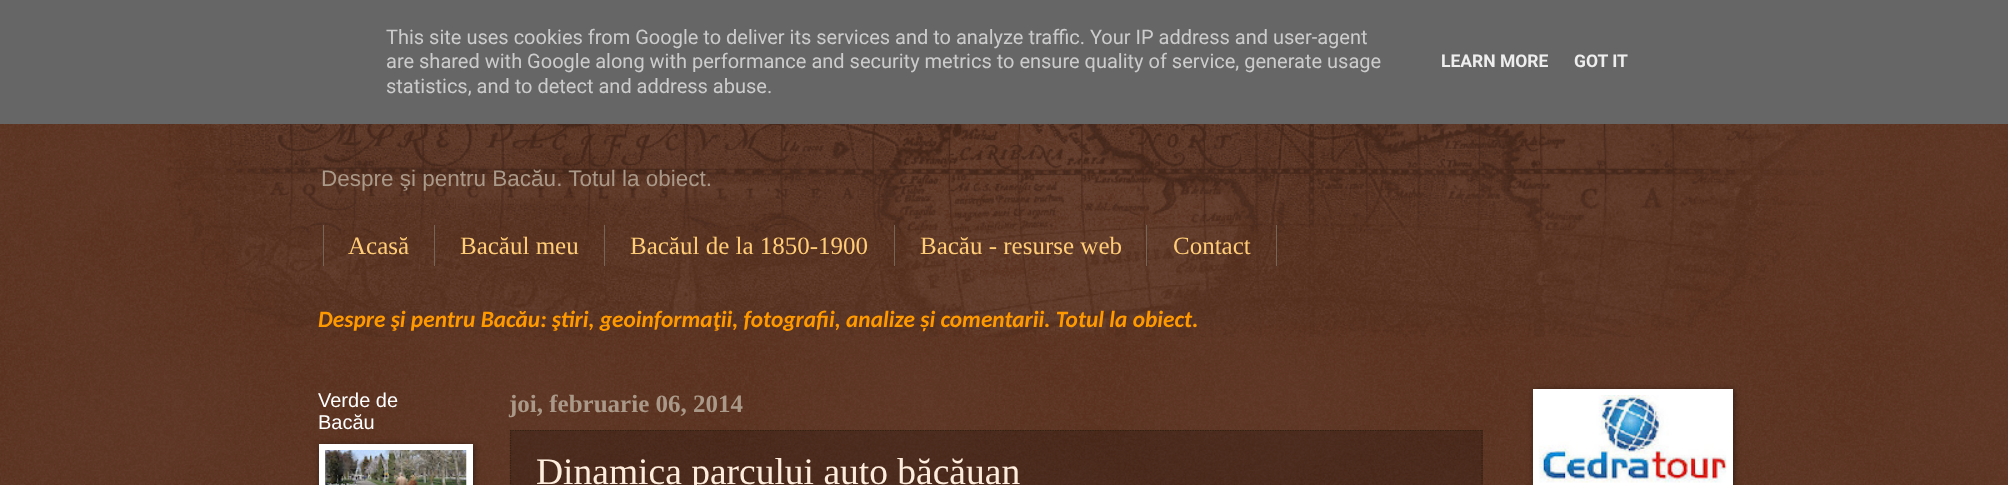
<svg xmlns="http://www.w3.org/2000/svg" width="2008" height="485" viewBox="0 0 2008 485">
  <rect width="100%" height="100%" fill="#441500"/>
  <image x="0" y="124" width="2008" height="361" href="img/1.png"/>
  <path d="M0 0h2008v124H0z" fill="#666"/>
  <image x="165" y="124" width="1676" height="213" href="img/2.png"/>
  <path d="M434 225h1v41H434z" fill="#765"/>
  <path d="M323 225h1v41H323z" fill="#765"/>
  <path d="M604 225h1v41H604z" fill="#765"/>
  <path d="M894 225h1v41H894z" fill="#765"/>
  <path d="M1146 225h1v41H1146z" fill="#765"/>
  <path d="M1276 225h1v41H1276z" fill="#765"/>
  <path d="M320 445h154v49H320z" fill="#00000080" filter="blur(3px)"/>
  <path d="M319 444h154v41H319z" fill="#fff"/>
  <image x="325" y="450" width="142" height="35" href="img/3.png"/>
  <path d="M510 430h973v55H510z" fill="#00000033"/>
  <path d="M510 430.5H1482.5" fill="none" stroke="#321" stroke-width="1.2" stroke-dasharray="1.25 1.25"/>
  <path d="M1482 430V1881" fill="none" stroke="#321" stroke-width="1.2" stroke-dasharray="1.25 1.25"/>
  <path d="M510.5 430V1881" fill="none" stroke="#321" stroke-width="1.2" stroke-dasharray="1.25 1.25"/>
  <path d="M1534 390h200v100H1534z" fill="#00000080" filter="blur(3px)"/>
  <path d="M1533 389h200v96H1533z" fill="#fff"/>
  <image x="1538" y="395" width="189" height="88" href="img/4.png"/>
  <g font-family="Roboto" font-size="20" fill="#ccc">
    <text x="386" y="44">This site uses cookies from Google to deliver its services and to analyze traffic. Your IP address and user-agent</text>
    <text x="386" y="68">are shared with Google along with performance and security metrics to ensure quality of service, generate usage</text>
    <text x="386" y="93">statistics, and to detect and address abuse.</text>
  </g>
  <g font-family="Roboto" font-size="17.5" font-weight="bold" fill="#eee">
    <text x="1441" y="67">LEARN MORE</text>
    <text x="1574" y="67">GOT IT</text>
  </g>
  <text x="321" y="186" font-family="Liberation Sans" font-size="22.5" fill="#a98">Despre şi pentru Bacău. Totul la obiect.</text>
  <g font-family="Liberation Serif" font-size="25" fill="#fc7">
    <text x="348" y="254">Acasă</text>
    <text x="460" y="254">Bacăul meu</text>
    <text x="630" y="254">Bacăul de la 1850-1900</text>
    <text x="920" y="254">Bacău - resurse web</text>
    <text x="1173" y="254">Contact</text>
  </g>
  <text x="318" y="327" font-family="Carlito" font-size="23.35" font-weight="bold" font-style="italic" fill="#f90">Despre şi pentru Bacău: ştiri, geoinformaţii, fotografii, analize și comentarii. Totul la obiect.</text>
  <g font-family="Arimo" font-size="20" fill="#fff">
    <text x="318" y="407">Verde de</text>
    <text x="318" y="429">Bacău</text>
  </g>
  <text x="509" y="412" font-family="Liberation Serif" font-size="25" font-weight="bold" fill="#a98">joi, februarie 06, 2014</text>
  <text x="536" y="484" font-family="Liberation Serif" font-size="37.5" fill="#fed">Dinamica parcului auto băcăuan</text>
</svg>
